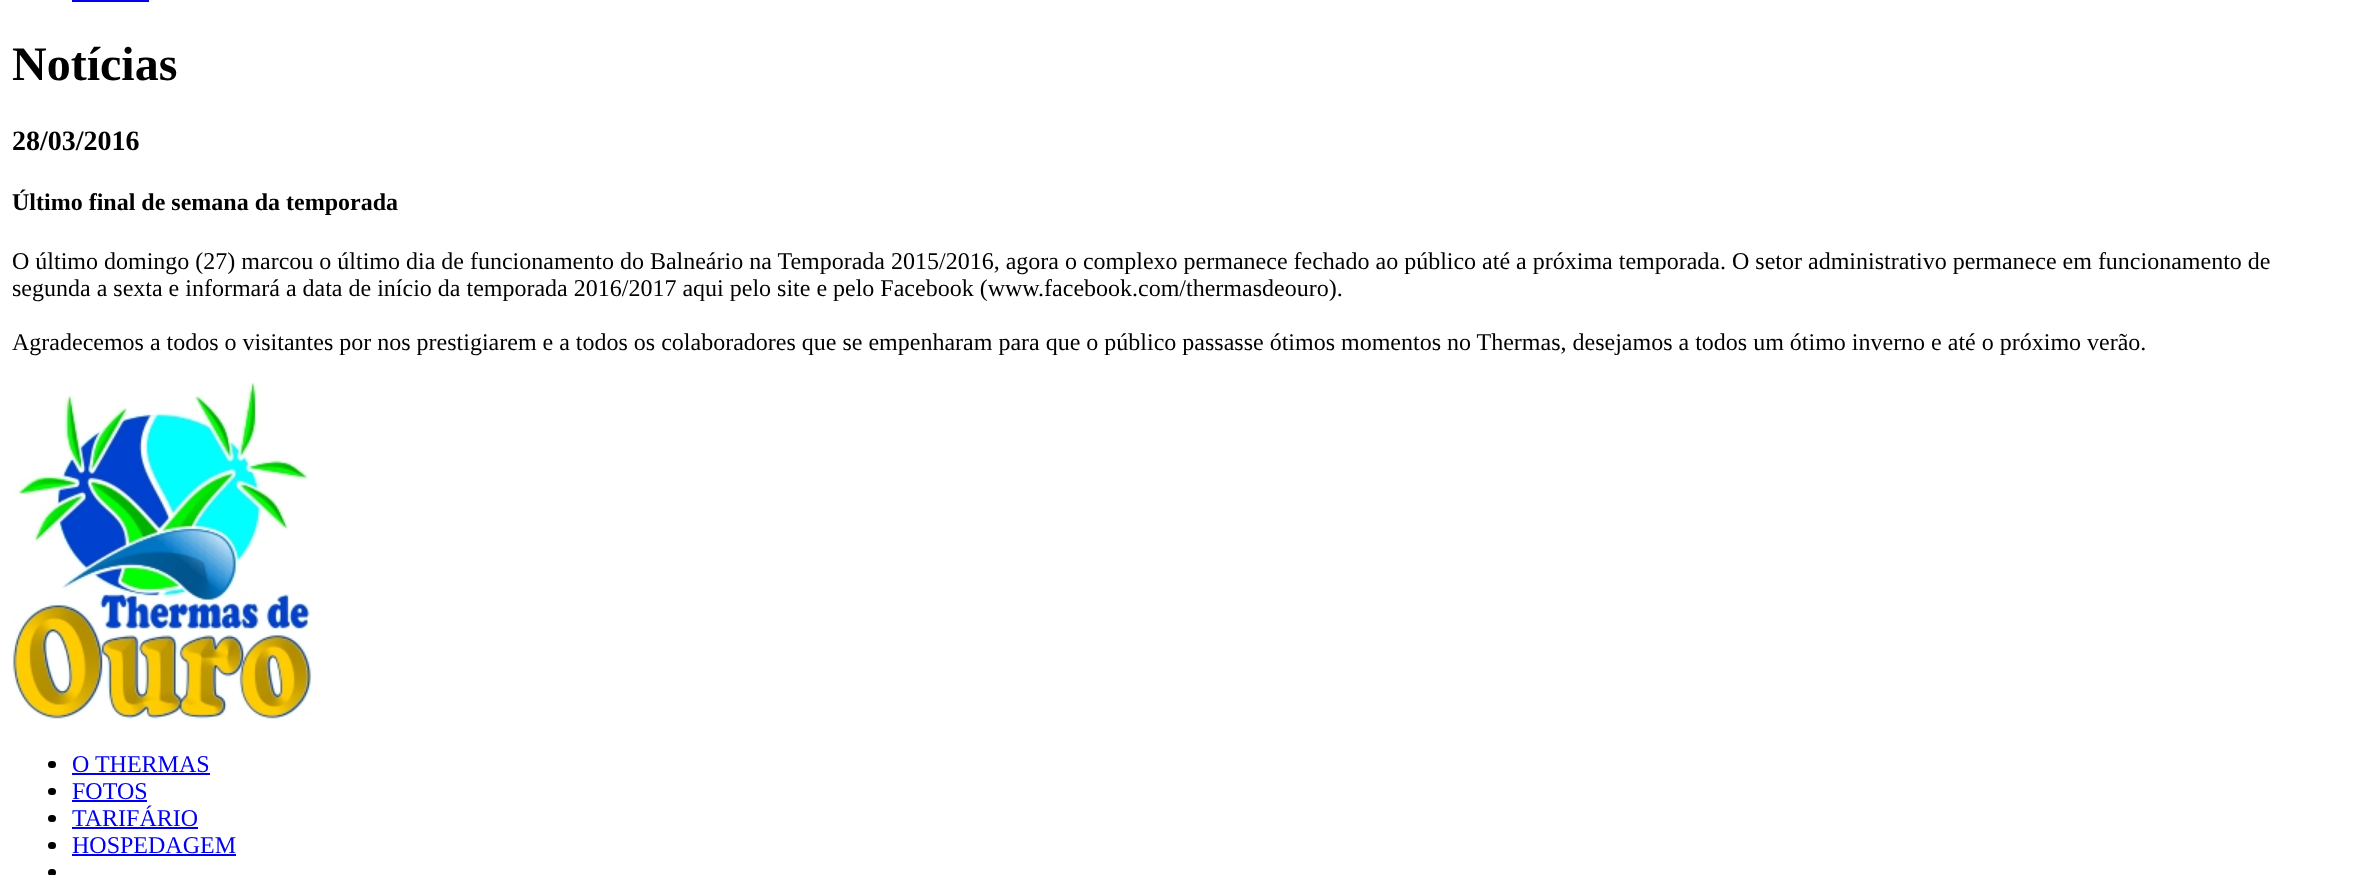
<svg xmlns="http://www.w3.org/2000/svg" width="2366" height="875" viewBox="0 0 2366 875">
  <rect width="100%" height="100%" fill="#fff"/>
  <path d="M72 0h77v2H72z" fill="#00e"/>
  <image x="12" y="381" width="300" height="339" href="img/1.png"/>
  <rect x="48" y="761" width="8" height="7" rx="3.5" fill="#000"/>
  <path d="M72 773h138v2H72z" fill="#00e"/>
  <rect x="48" y="788" width="8" height="7" rx="3.5" fill="#000"/>
  <path d="M72 800h75v2H72z" fill="#00e"/>
  <rect x="48" y="815" width="8" height="7" rx="3.5" fill="#000"/>
  <path d="M72 827h126v2H72z" fill="#00e"/>
  <rect x="48" y="842" width="8" height="7" rx="3.5" fill="#000"/>
  <path d="M72 854h164v2H72z" fill="#00e"/>
  <rect x="48" y="869" width="8" height="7" rx="3.5" fill="#000"/>
  <text x="12" y="80" font-family="Liberation Serif" font-size="48" font-weight="bold" fill="#000">Notícias</text>
  <text x="12" y="150" font-family="Liberation Serif" font-size="28" font-weight="bold" fill="#000">28/03/2016</text>
  <text x="12" y="210" font-family="Liberation Serif" font-size="24" font-weight="bold" fill="#000">Último final de semana da temporada</text>
  <g font-family="Liberation Serif" font-size="24" fill="#000">
    <text x="12" y="269">O último domingo (27) marcou o último dia de funcionamento do Balneário na Temporada 2015/2016, agora o complexo permanece fechado ao público até a próxima temporada. O setor administrativo permanece em funcionamento de</text>
    <text x="12" y="296">segunda a sexta e informará a data de início da temporada 2016/2017 aqui pelo site e pelo Facebook (www.facebook.com/thermasdeouro).</text>
    <text x="12" y="350">Agradecemos a todos o visitantes por nos prestigiarem e a todos os colaboradores que se empenharam para que o público passasse ótimos momentos no Thermas, desejamos a todos um ótimo inverno e até o próximo verão.</text>
  </g>
  <g font-family="Liberation Serif" font-size="24" fill="#00e">
    <text x="72" y="772">O THERMAS</text>
    <text x="72" y="799">FOTOS</text>
    <text x="72" y="826">TARIFÁRIO</text>
    <text x="72" y="853">HOSPEDAGEM</text>
  </g>
</svg>
